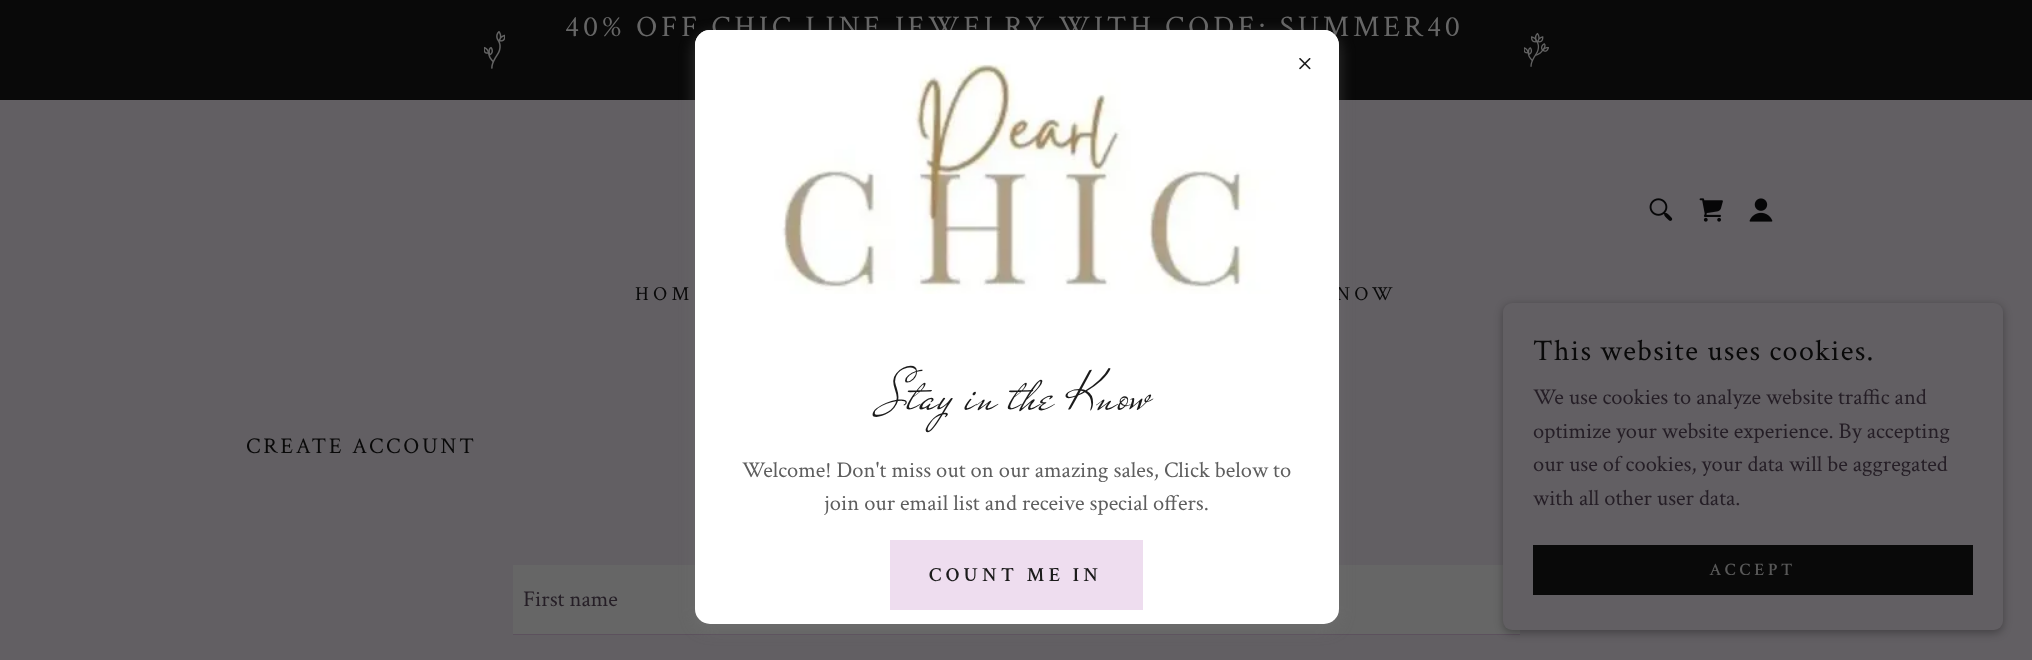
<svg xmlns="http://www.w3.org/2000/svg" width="2032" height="660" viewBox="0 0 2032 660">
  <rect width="100%" height="100%" fill="#625f63"/>
  <path d="M0 0h2032v100H0z" fill="#090909"/>
  <image x="484" y="31" width="21" height="38" href="img/1.png"/>
  <image x="1524" y="32" width="25" height="35" href="img/2.png"/>
  <image x="1649" y="198" width="24" height="23" href="img/3.png"/>
  <image x="1699" y="198" width="24" height="24" href="img/4.png"/>
  <image x="1749" y="198" width="24" height="24" href="img/5.png"/>
  <path d="M513 565h1007v69H513z" fill="#666"/>
  <path d="M513 634h1007v1H513z" fill="#5c515d"/>
  <rect x="695" y="35" width="644" height="594" rx="15" fill="#75757566" filter="blur(7.5px)"/>
  <rect x="1503" y="305" width="500" height="328" rx="9" fill="#0000004d" filter="blur(4px)"/>
  <rect x="1503" y="303" width="500" height="327" rx="9" fill="#625f63"/>
  <path d="M1533 545h440v50H1533z" fill="#090909"/>
  <text x="565" y="36" font-family="Crimson Text" font-size="30" letter-spacing="3.75" fill="#666">40% OFF CHIC LINE JEWELRY WITH CODE: SUMMER40</text>
  <g font-family="Crimson Text" font-size="20" letter-spacing="4.25" fill="#090909">
    <text x="635" y="300">HOM</text>
    <text x="1336" y="300">NOW</text>
  </g>
  <text x="246" y="453" font-family="Crimson Text" font-size="22.5" letter-spacing="2.75" fill="#090909">CREATE ACCOUNT</text>
  <text x="523" y="606" font-family="Crimson Text" font-size="22.5" fill="#251e26">First name</text>
  <rect x="695" y="30" width="644" height="594" rx="15" fill="#fff"/>
  <image x="695" y="30" width="644" height="264" href="img/7.png"/>
  <image x="1299" y="58" width="12" height="12" href="img/6.png"/>
  <text x="881" y="409" font-family="Mr De Haviland" font-size="56.25" letter-spacing="1.25" fill="#1b1b1b">Stay in the Know</text>
  <g font-family="Crimson Text" font-size="22.5" fill="#5e5e5e">
    <text x="742" y="477">Welcome! Don't miss out on our amazing sales, Click below to</text>
    <text x="824" y="510">join our email list and receive special offers.</text>
  </g>
  <path d="M890 540h253v70H890z" fill="#eeddef"/>
  <text x="929" y="581" font-family="Crimson Text" font-size="20" font-weight="600" letter-spacing="4.25" fill="#1b1b1b">COUNT ME IN</text>
  <text x="1533" y="360" font-family="Crimson Text" font-size="30" letter-spacing="1.35" fill="#090909">This website uses cookies.</text>
  <g font-family="Crimson Text" font-size="22.5" fill="#251e26">
    <text x="1533" y="404">We use cookies to analyze website traffic and</text>
    <text x="1533" y="438">optimize your website experience. By accepting</text>
    <text x="1533" y="471">our use of cookies, your data will be aggregated</text>
    <text x="1533" y="505">with all other user data.</text>
  </g>
  <text x="1709" y="575" font-family="Crimson Text" font-size="17.5" font-weight="600" letter-spacing="3.75" fill="#585858">ACCEPT</text>
</svg>
